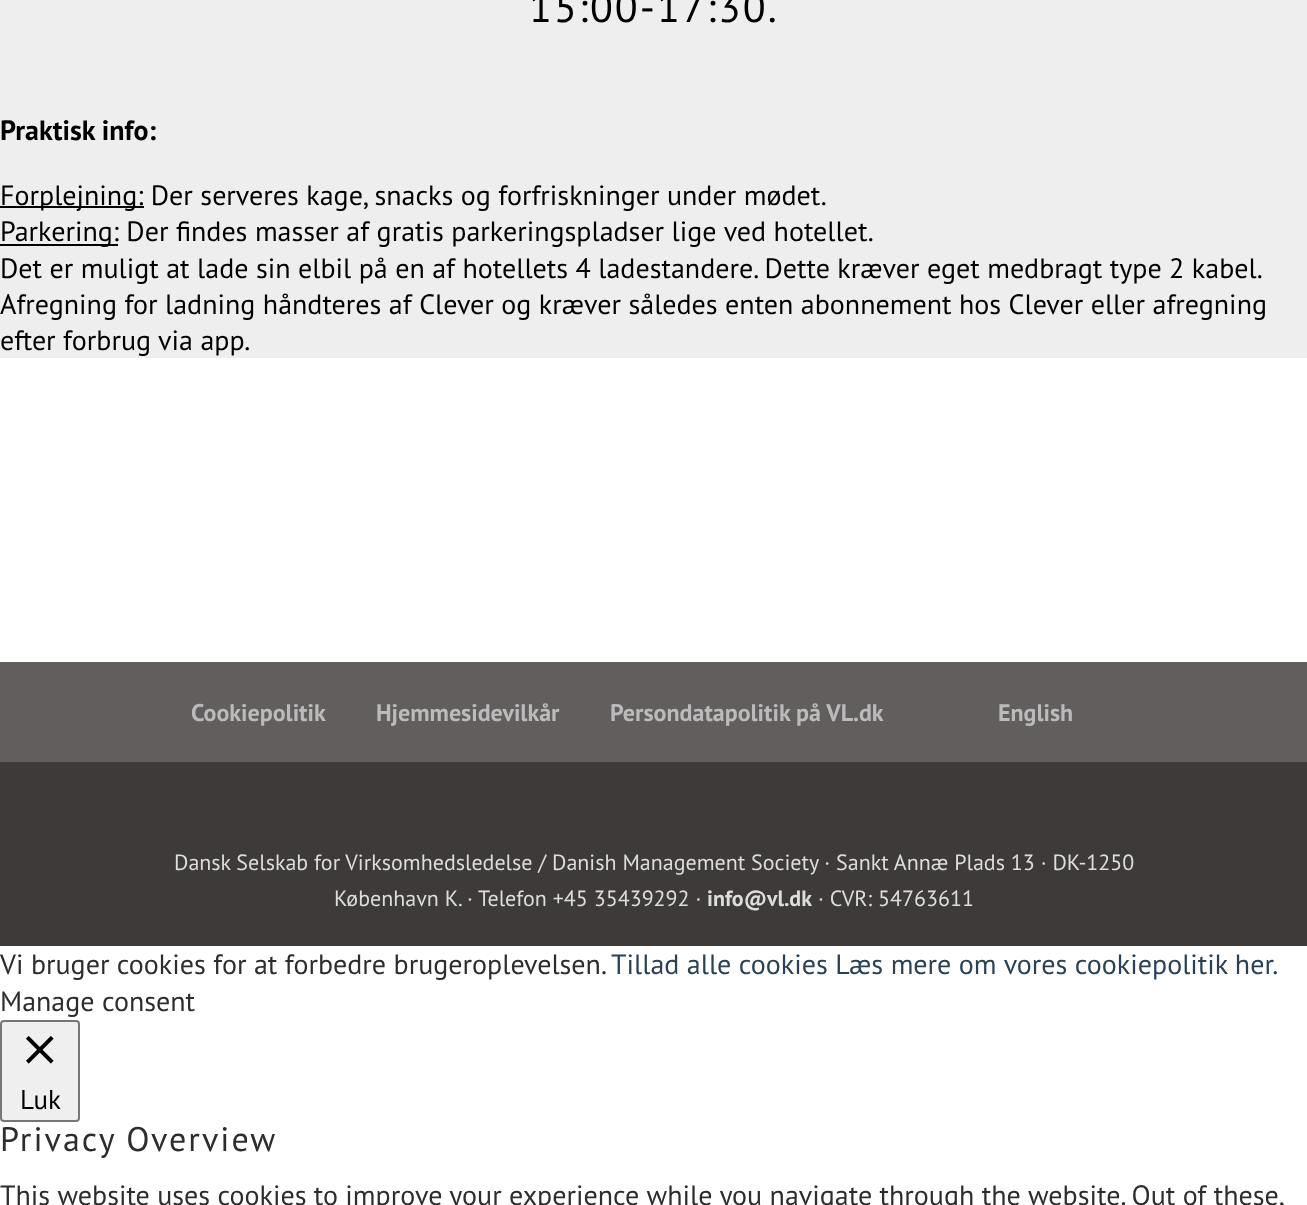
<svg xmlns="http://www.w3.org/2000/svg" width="1307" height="1205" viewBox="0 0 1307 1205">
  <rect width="100%" height="100%" fill="#fff"/>
  <path d="M0 0h1307v358H0z" fill="#eee"/>
  <path d="M0 206h144v2H0z" fill="#000"/>
  <path d="M0 244h118v2H0z" fill="#000"/>
  <path d="M0 662h1307v100H0z" fill="#635e5e"/>
  <path d="M0 762h1307v184H0z" fill="#3e3a3a"/>
  <rect x="1" y="1021" width="78" height="100" rx="3" fill="#efefef" stroke="#767676" stroke-width="2"/>
  <image x="26" y="1036" width="28" height="28" href="img/1.png"/>
  <text x="529" y="22" font-family="PT Sans" font-size="42" letter-spacing="2" fill="#000">15:00-17:30.</text>
  <text x="0" y="140" font-family="PT Sans" font-size="28" font-weight="bold" fill="#000">Praktisk info:</text>
  <g font-family="PT Sans" font-size="28" fill="#000">
    <text x="0" y="205">Forplejning: Der serveres kage, snacks og forfriskninger under mødet.</text>
    <text x="0" y="241">Parkering: Der findes masser af gratis parkeringspladser lige ved hotellet.</text>
    <text x="0" y="278">Det er muligt at lade sin elbil på en af hotellets 4 ladestandere. Dette kræver eget medbragt type 2 kabel.</text>
    <text x="0" y="314">Afregning for ladning håndteres af Clever og kræver således enten abonnement hos Clever eller afregning</text>
    <text x="0" y="350">efter forbrug via app.</text>
  </g>
  <g font-family="PT Sans" font-size="24" font-weight="bold" fill="#bbb">
    <text x="191" y="721">Cookiepolitik</text>
    <text x="376" y="721">Hjemmesidevilkår</text>
    <text x="610" y="721">Persondatapolitik på VL.dk</text>
    <text x="998" y="721">English</text>
  </g>
  <g font-family="PT Sans" font-size="22" fill="#ddd">
    <text x="174" y="870">Dansk Selskab for Virksomhedsledelse / Danish Management Society · Sankt Annæ Plads 13 · DK-1250</text>
    <text x="334" y="906">København K. · Telefon +45 35439292 ·</text>
  </g>
  <text x="707" y="906" font-family="PT Sans" font-size="22" font-weight="bold" fill="#ddd">info@vl.dk</text>
  <text x="818" y="906" font-family="PT Sans" font-size="22" fill="#ddd">· CVR: 54763611</text>
  <text x="0" y="974" font-family="PT Sans" font-size="28" fill="#2d2d2d">Vi bruger cookies for at forbedre brugeroplevelsen.</text>
  <text x="611" y="974" font-family="PT Sans" font-size="28" fill="#2a4257">Tillad alle cookies Læs mere om vores cookiepolitik her.</text>
  <text x="0" y="1011" font-family="PT Sans" font-size="28" fill="#2d2d2d">Manage consent</text>
  <text x="20" y="1109" font-family="PT Sans" font-size="27" fill="#000">Luk</text>
  <text x="0" y="1151" font-family="PT Sans" font-size="34" letter-spacing="2" fill="#2d2d2d">Privacy Overview</text>
  <text x="0" y="1205" word-spacing="-0.1" font-family="PT Sans" font-size="28" fill="#2d2d2d">This website uses cookies to improve your experience while you navigate through the website. Out of these,</text>
</svg>
